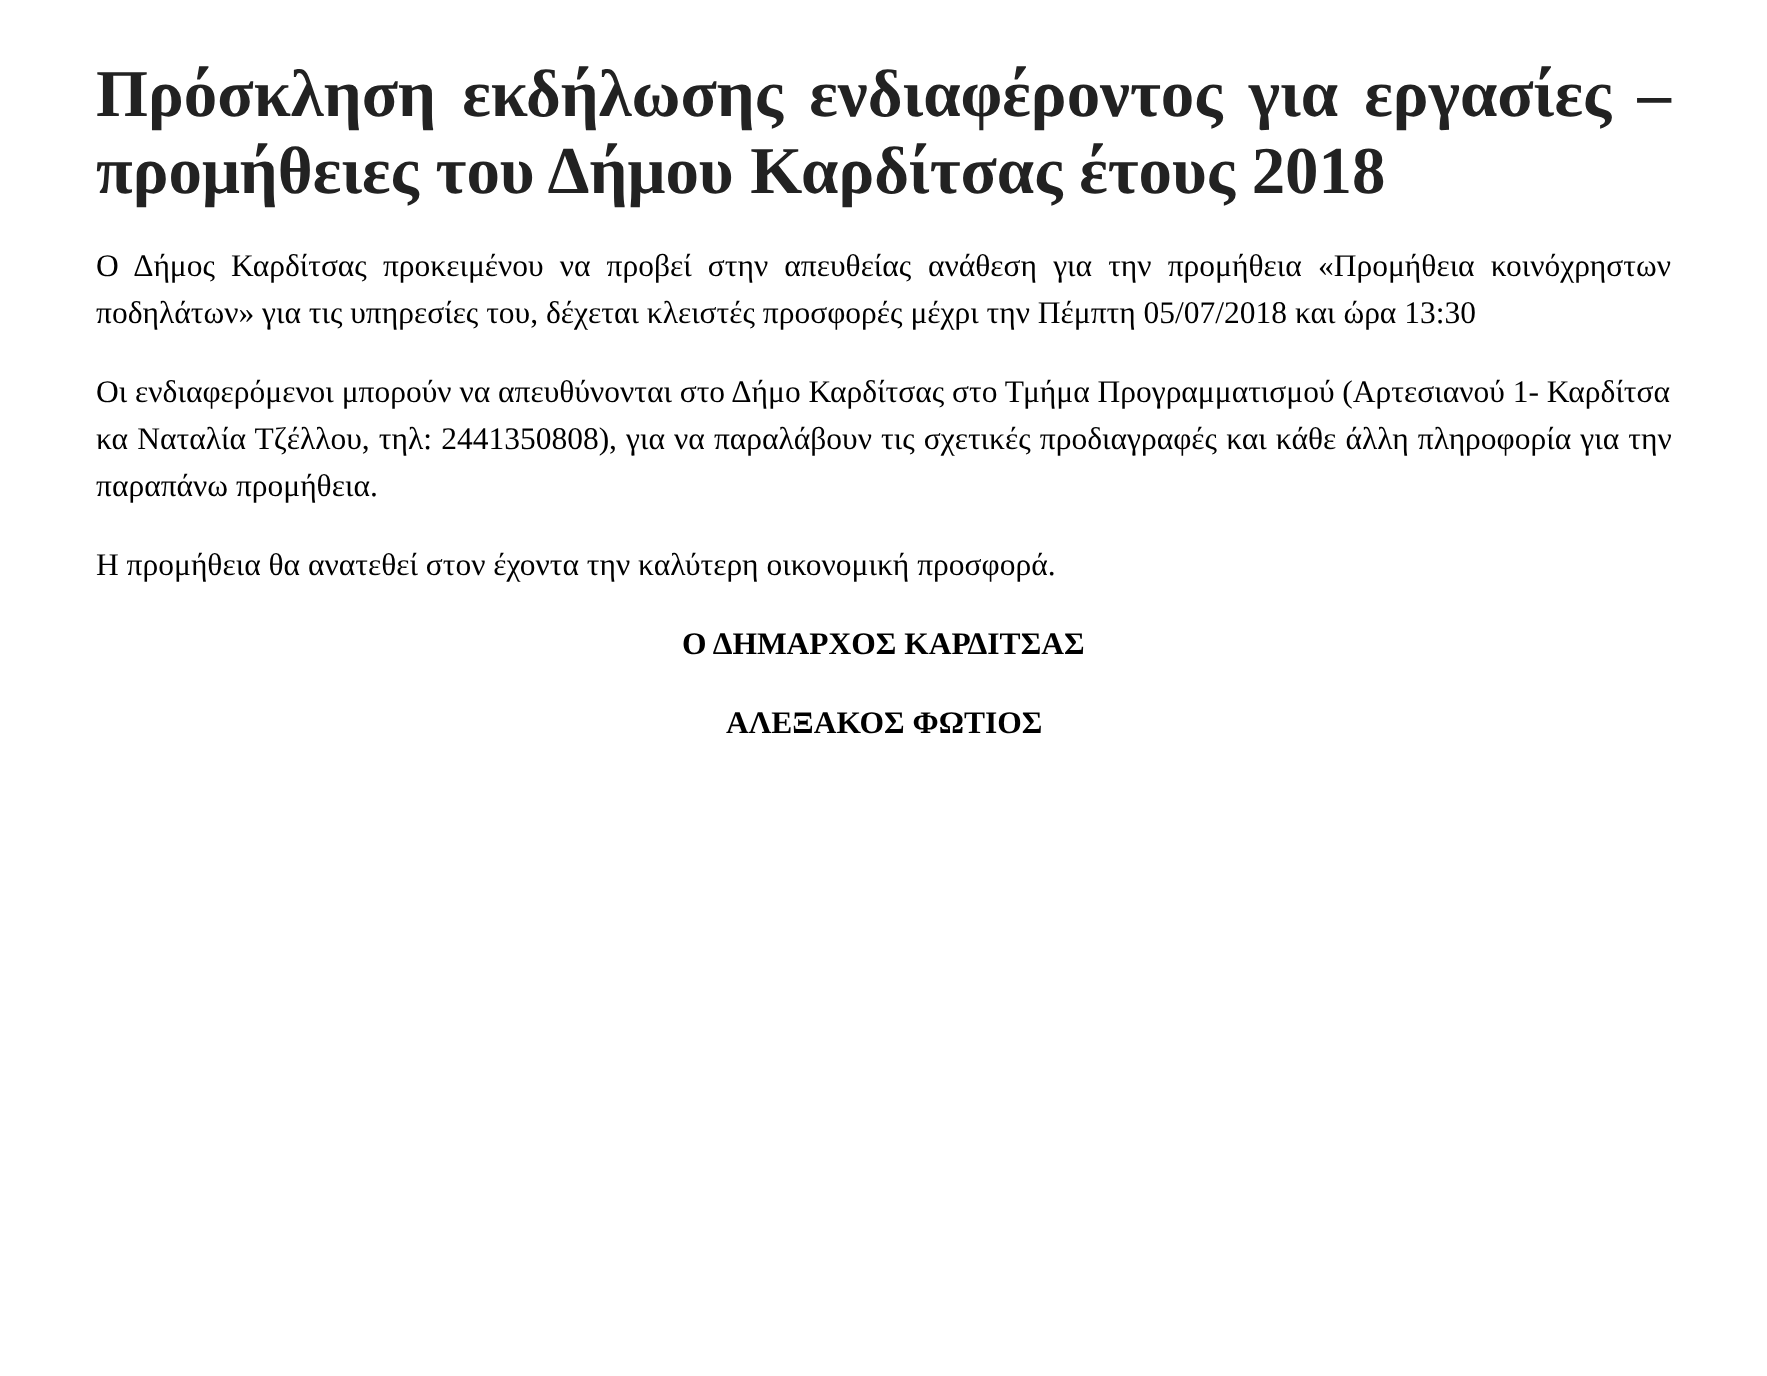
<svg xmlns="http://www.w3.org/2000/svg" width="1767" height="1376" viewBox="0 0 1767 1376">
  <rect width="100%" height="100%" fill="#fff"/>
  <g font-family="Liberation Serif" font-size="66.9" font-weight="bold" fill="#222">
    <text x="96" y="116" word-spacing="9.5">Πρόσκληση εκδήλωσης ενδιαφέροντος για εργασίες –</text>
    <text x="96" y="193">προμήθειες του Δήμου Καρδίτσας έτους 2018</text>
  </g>
  <g font-family="Liberation Serif" font-size="31.5" fill="#000">
    <text x="96" y="276" word-spacing="8.25">Ο Δήμος Καρδίτσας προκειμένου να προβεί στην απευθείας</text>
    <text x="928" y="276" word-spacing="8.25">ανάθεση για την προμήθεια</text>
    <text x="1318" y="276" word-spacing="8.25">«Προμήθεια κοινόχρηστων</text>
    <text x="96" y="323">ποδηλάτων» για τις υπηρεσίες του, δέχεται κλειστές προσφορές μέχρι την Πέμπτη 05/07/2018 και ώρα 13:30</text>
    <text x="96" y="402">Οι ενδιαφερόμενοι μπορούν να απευθύνονται στο Δήμο Καρδίτσας στο Τμήμα Προγραμματισμού (Αρτεσιανού 1- Καρδίτσα</text>
    <text x="96" y="449" word-spacing="1.25">κα Ναταλία Τζέλλου, τηλ: 2441350808),</text>
    <text x="626" y="449" word-spacing="1.25">για να παραλάβουν τις σχετικές προδιαγραφές και κάθε άλλη πληροφορία για την</text>
    <text x="96" y="496">παραπάνω προμήθεια.</text>
    <text x="96" y="575">Η προμήθεια θα ανατεθεί στον έχοντα την καλύτερη οικονομική προσφορά.</text>
  </g>
  <g font-family="Liberation Serif" font-size="31.5" font-weight="bold" fill="#000">
    <text x="682" y="654">Ο ΔΗΜΑΡΧΟΣ ΚΑΡΔΙΤΣΑΣ</text>
    <text x="726" y="733">ΑΛΕΞΑΚΟΣ ΦΩΤΙΟΣ</text>
  </g>
</svg>
